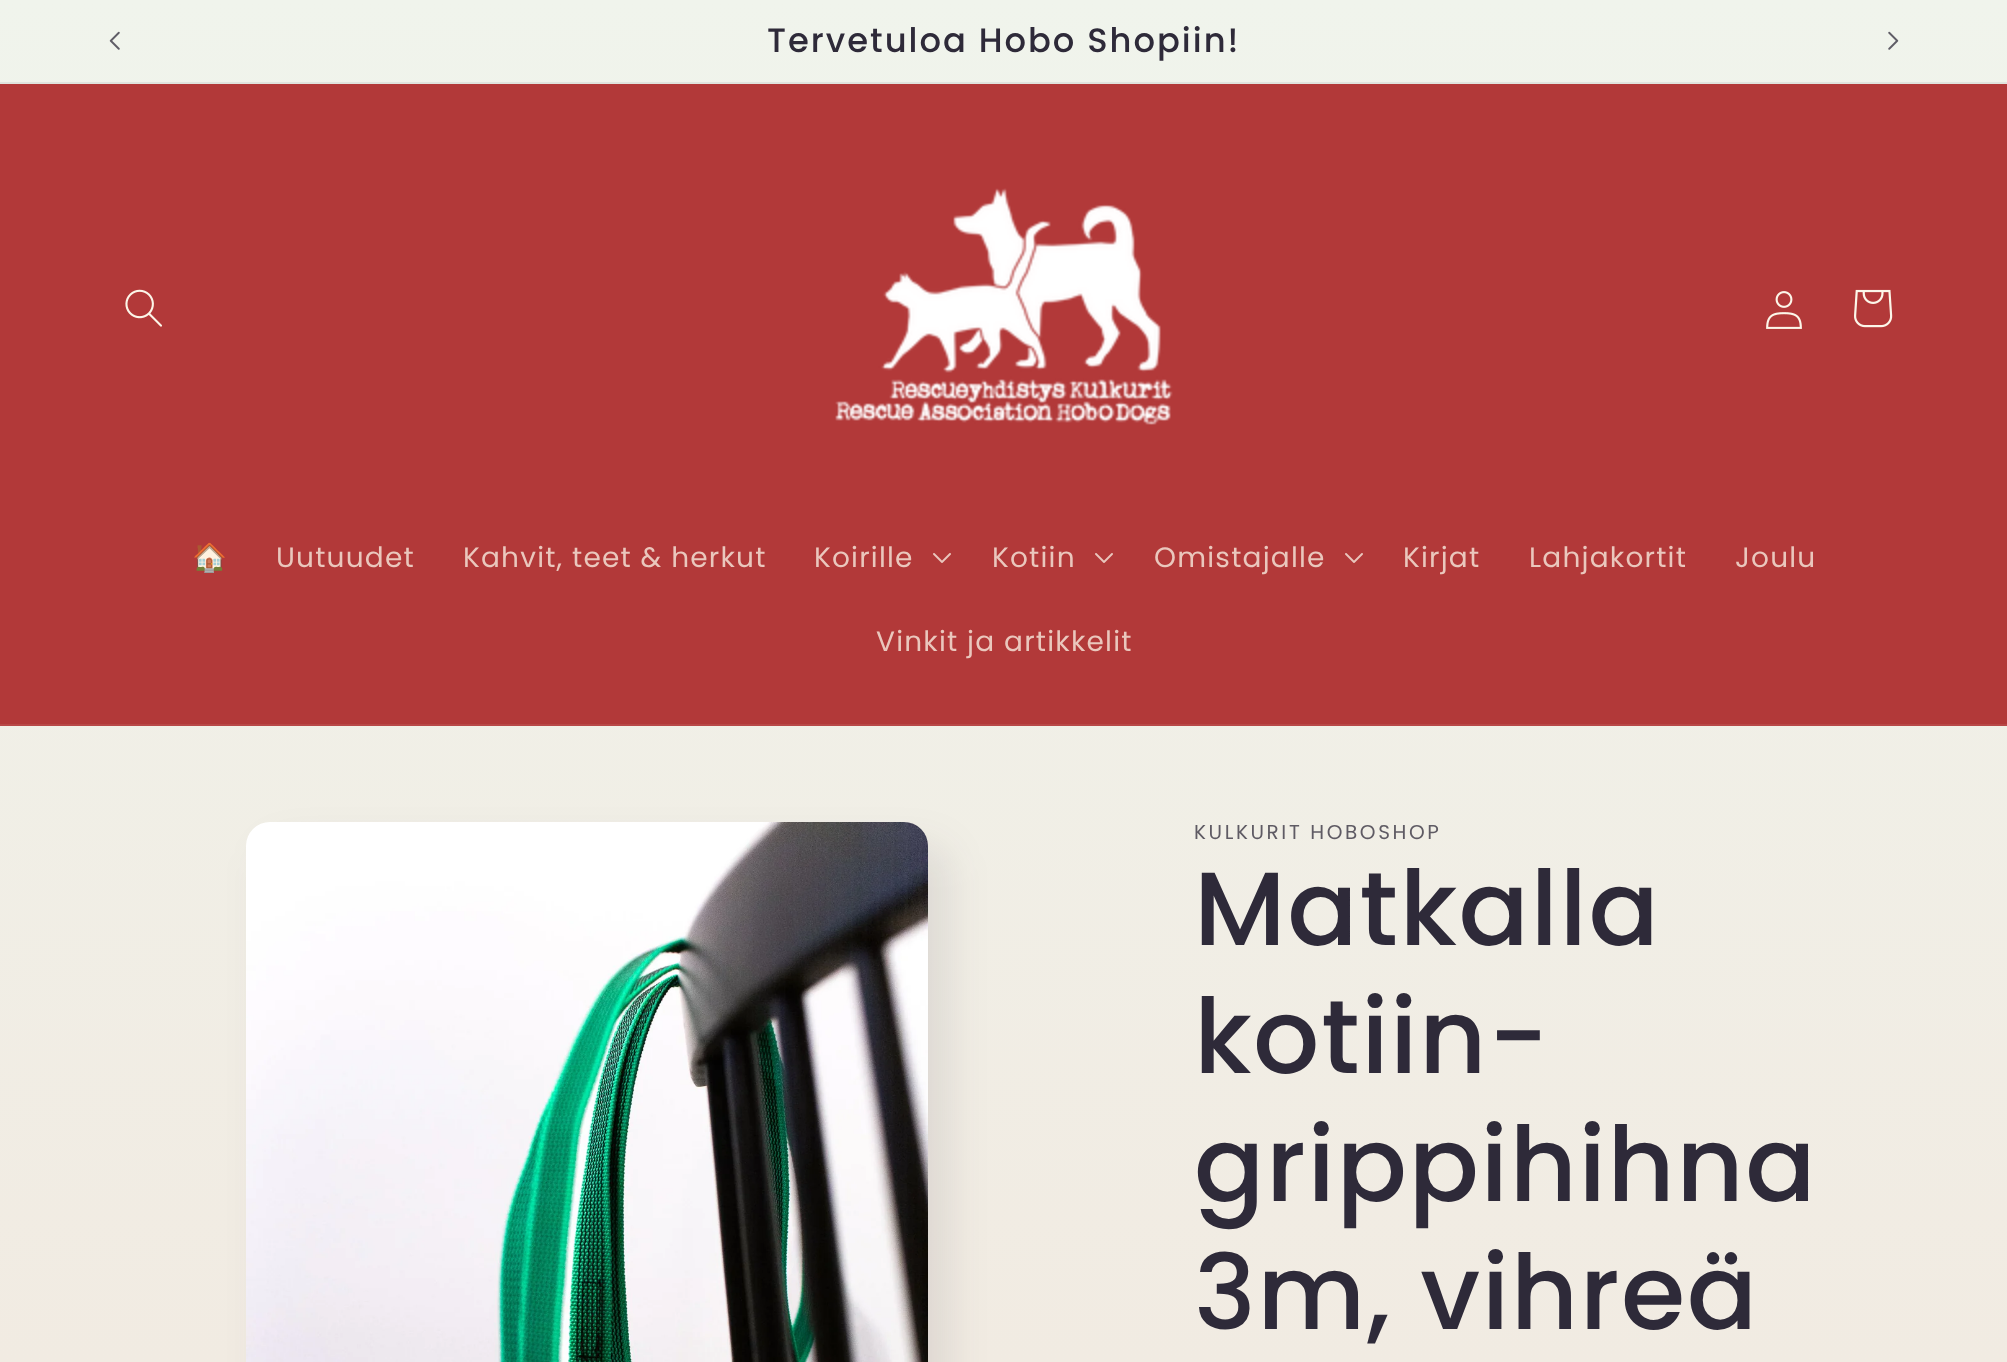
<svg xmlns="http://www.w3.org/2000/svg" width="2007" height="1362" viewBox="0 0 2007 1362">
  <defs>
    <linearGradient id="g1" gradientUnits="userSpaceOnUse" x1="1004" y1="0" x2="1004" y2="1362"><stop offset="0" stop-color="#f0f4ec"/><stop offset="1" stop-color="#f1ebe2"/></linearGradient>
  </defs>
  <rect width="100%" height="100%" fill="#fff"/>
  <path d="M0 0h2007v1362H0z" fill="url(#g1)"/>
  <path d="M0 82h2007v2H0z" fill="#e0e3dd"/>
  <image x="109" y="31" width="11" height="19" href="img/1.png"/>
  <image x="1888" y="31" width="11" height="19" href="img/2.png"/>
  <path d="M0 84h2007v640H0z" fill="#b23939"/>
  <path d="M0 724h2007v2H0z" fill="#b84847"/>
  <image x="125" y="289" width="37" height="38" href="img/3.png"/>
  <image x="835" y="188" width="338" height="237" href="img/4.png"/>
  <image x="1766" y="291" width="36" height="38" href="img/5.png"/>
  <image x="1854" y="289" width="39" height="39" href="img/6.png"/>
  <image x="933" y="553" width="18" height="10" href="img/7.png"/>
  <image x="1095" y="553" width="18" height="10" href="img/7.png"/>
  <image x="1345" y="553" width="18" height="10" href="img/7.png"/>
  <rect x="266" y="846" width="682" height="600" rx="24" fill="#2e2a391a" filter="blur(20px)"/>
  <image x="246" y="822" width="682" height="540" href="img/8.png"/>
  <text x="767" y="52" font-family="Poppins" font-size="33.75" font-weight="500" letter-spacing="2" fill="#2e2a39">Tervetuloa Hobo Shopiin!</text>
  <text x="192" y="567" font-family="Noto Color Emoji" font-size="28" letter-spacing="1.2" fill="#eac7bd">🏠</text>
  <g font-family="Poppins" font-size="28" letter-spacing="1.2" fill="#eac7bd">
    <text x="276" y="567">Uutuudet</text>
    <text x="463" y="567">Kahvit, teet &amp; herkut</text>
    <text x="814" y="567">Koirille</text>
    <text x="992" y="567">Kotiin</text>
    <text x="1154" y="567">Omistajalle</text>
    <text x="1403" y="567">Kirjat</text>
    <text x="1529" y="567">Lahjakortit</text>
    <text x="1735" y="567">Joulu</text>
    <text x="876" y="651">Vinkit ja artikkelit</text>
  </g>
  <text x="1194" y="839" font-family="Poppins" font-size="20" letter-spacing="2.6" fill="#5f5b64">KULKURIT HOBOSHOP</text>
  <g font-family="Poppins" font-size="104" font-weight="500" letter-spacing="1.5" fill="#2e2a39">
    <text x="1194" y="945">Matkalla</text>
    <text x="1194" y="1073">kotiin-</text>
    <text x="1194" y="1201">grippihihna</text>
    <text x="1194" y="1329">3m, vihreä</text>
  </g>
</svg>
